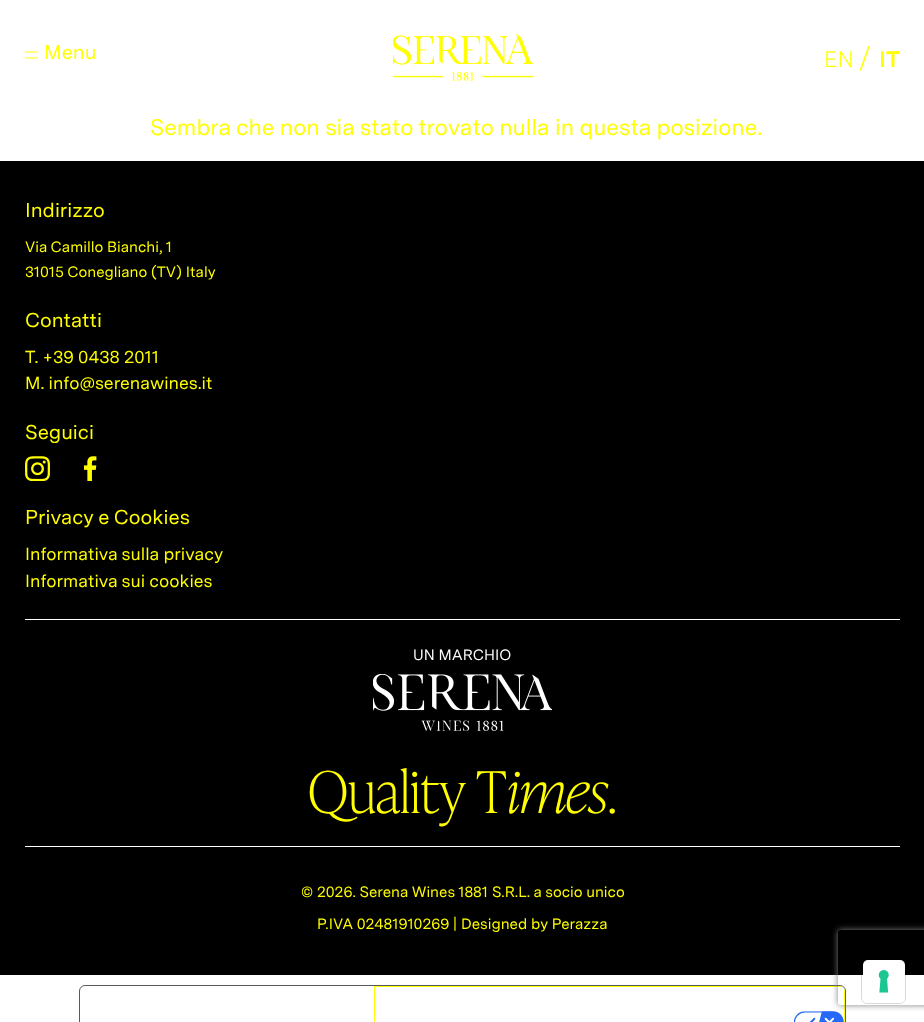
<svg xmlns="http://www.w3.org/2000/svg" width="924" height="1022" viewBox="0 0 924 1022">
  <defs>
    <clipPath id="clip1"><path d="M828 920H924V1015H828ZM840.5 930H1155.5C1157 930 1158 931 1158 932.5V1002.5C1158 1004 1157 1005 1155.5 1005H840.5C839 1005 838 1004 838 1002.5V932.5C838 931 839 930 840.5 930Z" clip-rule="evenodd"/></clipPath>
  </defs>
  <rect width="100%" height="100%" fill="#fff"/>
  <path d="M25 52H37.5M25 58H37.5" fill="none" stroke="#ff0" stroke-width="1.2"/>
  <image x="393" y="34" width="140" height="47" href="img/1.png"/>
  <path d="M0 161h924v814H0z" fill="#000"/>
  <path d="M25 619h875v1H25z" fill="#fff"/>
  <image x="25" y="456" width="25" height="25" href="img/2.png"/>
  <image x="84" y="456" width="13" height="25" href="img/3.png"/>
  <image x="373" y="674" width="179" height="57" href="img/4.png"/>
  <path d="M25 846h875v1H25z" fill="#fff"/>
  <rect x="79.5" y="985.5" width="766" height="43" rx="5.5" fill="none" stroke="#595959"/>
  <path d="M374 986V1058H840L843 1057H375V987H843L840 986ZM845 991L844 988V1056C845 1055 845 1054 845 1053Z" fill="#ff0" fill-rule="evenodd"/>
  <image x="794" y="1011" width="50" height="11" href="img/5.png"/>
  <g clip-path="url(#clip1)">
    <rect x="838" y="930" width="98" height="75" rx="2.5" fill="#808080" filter="blur(3px)"/>
  </g>
  <rect x="861.5" y="959.5" width="44" height="44" rx="5.5" fill="none" stroke="#00000026"/>
  <rect x="863" y="960" width="42" height="43" rx="5" fill="#fff"/>
  <image x="878" y="970" width="11" height="23" href="img/6.png"/>
  <text x="44" y="59" font-family="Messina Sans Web" font-size="20" fill="#ff0">Menu</text>
  <text x="824" y="67" font-family="Messina Sans Web" font-size="22.5" font-weight="300" fill="#ff0">EN</text>
  <text x="859" y="68" font-family="Messina Sans Web" font-size="28" font-weight="300" fill="#ff0">/</text>
  <text x="879" y="67" font-family="Messina Sans Web" font-size="22.5" font-weight="bold" fill="#ff0">IT</text>
  <text x="150" y="135" font-family="Messina Sans Web" font-size="22.5" fill="#ff0">Sembra che non sia stato trovato nulla in questa posizione.</text>
  <text x="25" y="217" font-family="Messina Sans Web" font-size="20" fill="#ff0">Indirizzo</text>
  <g font-family="Messina Sans Web" font-size="15" fill="#ff0">
    <text x="25" y="252">Via Camillo Bianchi, 1</text>
    <text x="25" y="277">31015 Conegliano (TV) Italy</text>
  </g>
  <text x="25" y="327" font-family="Messina Sans Web" font-size="20" fill="#ff0">Contatti</text>
  <g font-family="Messina Sans Web" font-size="17.5" fill="#ff0">
    <text x="25" y="363">T. +39 0438 2011</text>
    <text x="25" y="389">M. info@serenawines.it</text>
  </g>
  <g font-family="Messina Sans Web" font-size="20" fill="#ff0">
    <text x="25" y="439">Seguici</text>
    <text x="25" y="524">Privacy e Cookies</text>
  </g>
  <g font-family="Messina Sans Web" font-size="17.5" fill="#ff0">
    <text x="25" y="560">Informativa sulla privacy</text>
    <text x="25" y="587">Informativa sui cookies</text>
  </g>
  <text x="413" y="660" font-family="Messina Sans Web" font-size="15" fill="#fff">UN MARCHIO</text>
  <text x="308" y="813" font-family="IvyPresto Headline" font-size="57.5" font-weight="100" fill="#ff0">Quality T</text>
  <text x="507" y="813" font-family="IvyPresto Headline" font-size="57.5" font-weight="100" font-style="italic" fill="#ff0">imes</text>
  <text x="608" y="813" font-family="IvyPresto Headline" font-size="57.5" font-weight="100" fill="#ff0">.</text>
  <g font-family="Messina Sans Web" font-size="15" fill="#ff0">
    <text x="301" y="897">© 2026. Serena Wines 1881 S.R.L. a socio unico</text>
    <text x="317" y="929">P.IVA 02481910269 | Designed by Perazza</text>
  </g>
</svg>
